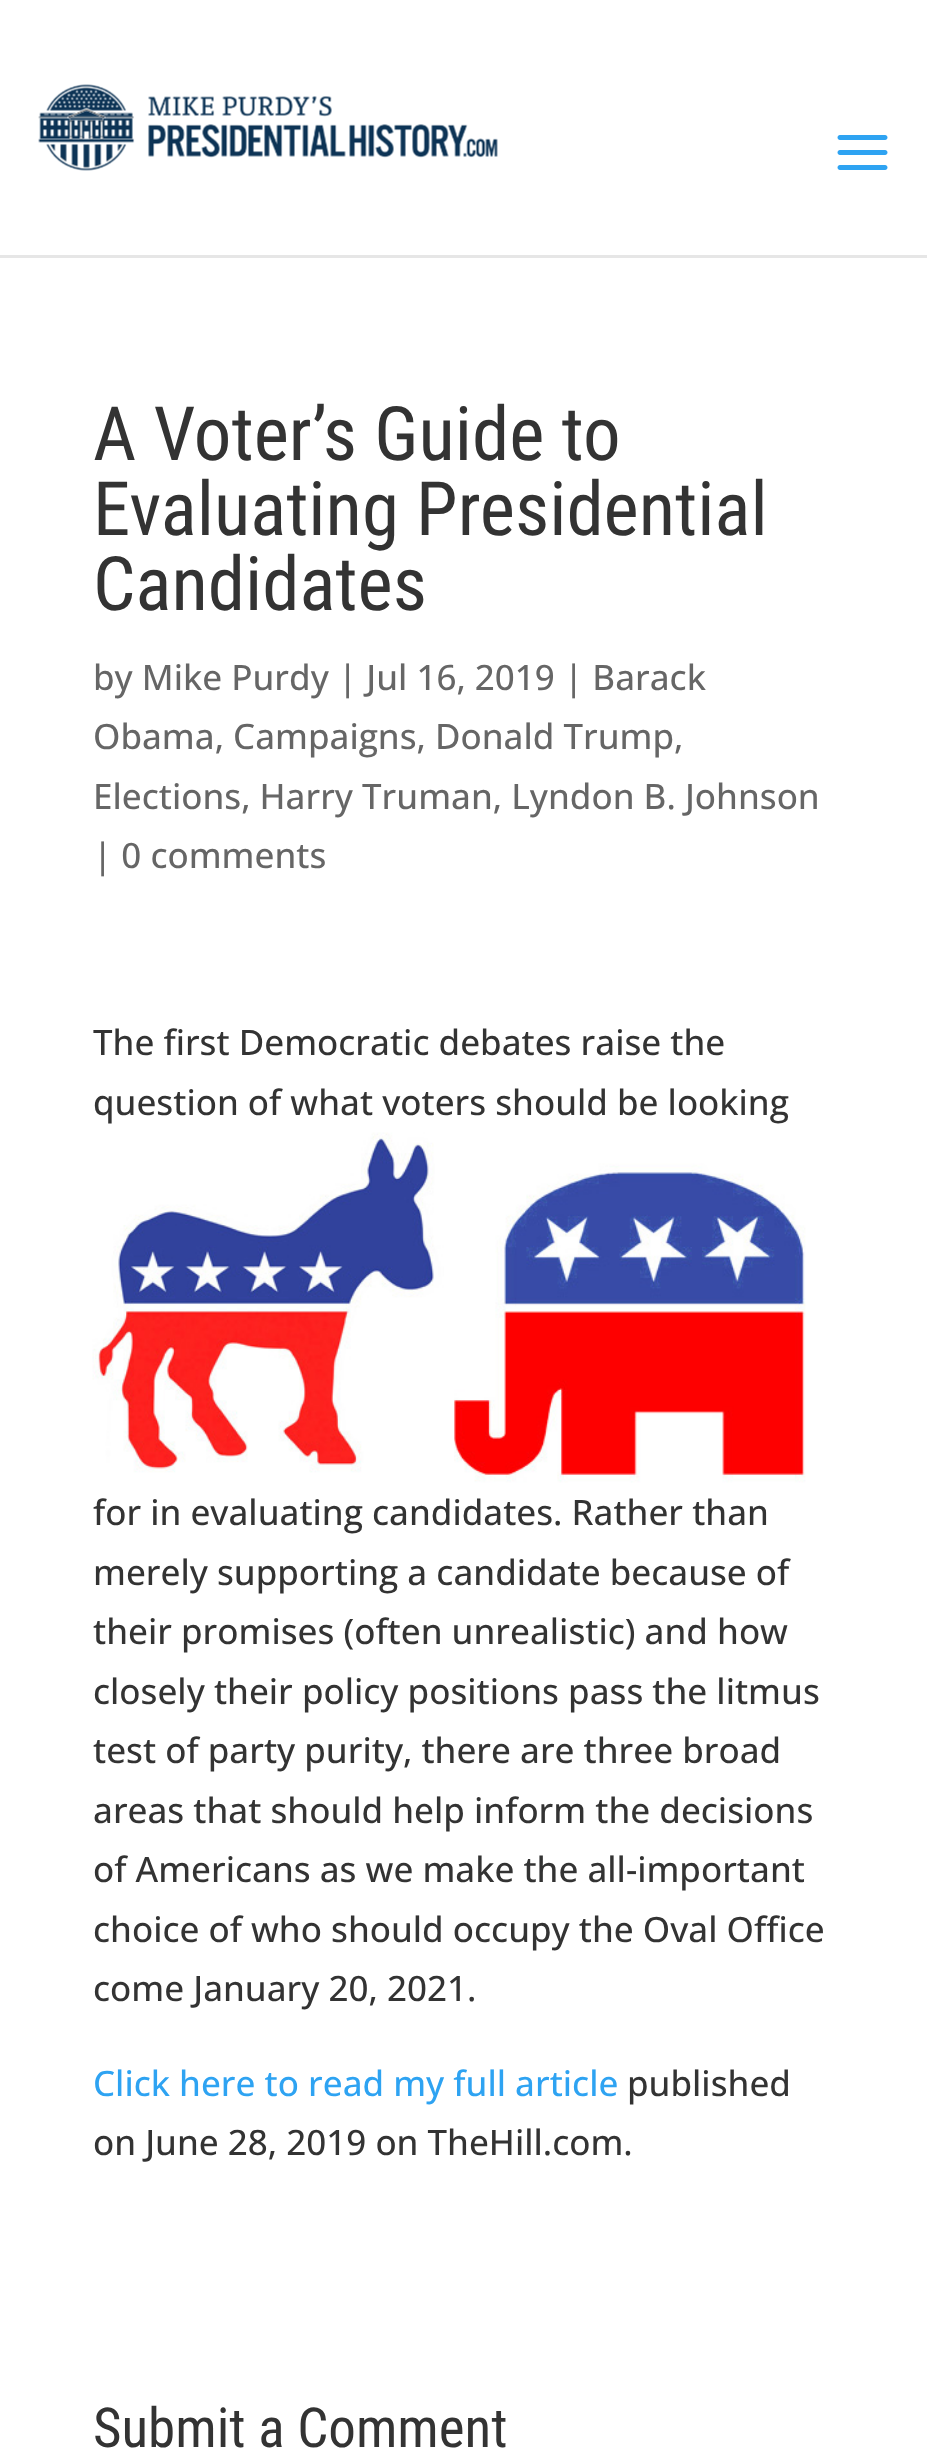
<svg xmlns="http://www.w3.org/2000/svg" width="927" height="2455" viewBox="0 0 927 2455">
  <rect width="100%" height="100%" fill="#fff"/>
  <path d="M0 255V258H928V3V255Z" fill="#e6e6e6"/>
  <image x="38" y="84" width="460" height="87" href="img/1.png"/>
  <image x="837" y="135" width="51" height="35" href="img/2.png"/>
  <image x="92" y="1132" width="714" height="351" href="img/3.png"/>
  <g font-family="Roboto Condensed" font-size="75" fill="#333">
    <text x="93" y="460">A Voter’s Guide to</text>
    <text x="93" y="535">Evaluating Presidential</text>
    <text x="93" y="610">Candidates</text>
  </g>
  <g font-family="Open Sans" font-size="35" font-weight="500" fill="#666">
    <text x="93" y="690">by Mike Purdy | Jul 16, 2019 | Barack</text>
    <text x="93" y="749">Obama, Campaigns, Donald Trump,</text>
    <text x="93" y="809">Elections, Harry Truman, Lyndon B. Johnson</text>
    <text x="93" y="868">| 0 comments</text>
  </g>
  <g font-family="Open Sans" font-size="35" font-weight="500" fill="#333">
    <text x="93" y="1055">The first Democratic debates raise the</text>
    <text x="93" y="1115">question of what voters should be looking</text>
    <text x="93" y="1525">for in evaluating candidates. Rather than</text>
    <text x="93" y="1585">merely supporting a candidate because of</text>
    <text x="93" y="1644">their promises (often unrealistic) and how</text>
    <text x="93" y="1704">closely their policy positions pass the litmus</text>
    <text x="93" y="1763">test of party purity, there are three broad</text>
    <text x="93" y="1823">areas that should help inform the decisions</text>
    <text x="93" y="1882">of Americans as we make the all-important</text>
    <text x="93" y="1942">choice of who should occupy the Oval Office</text>
    <text x="93" y="2001">come January 20, 2021.</text>
  </g>
  <text x="93" y="2096" font-family="Open Sans" font-size="35" font-weight="500" fill="#2ea3f2">Click here to read my full article</text>
  <g font-family="Open Sans" font-size="35" font-weight="500" fill="#333">
    <text x="627" y="2096">published</text>
    <text x="93" y="2155">on June 28, 2019 on TheHill.com.</text>
  </g>
  <text x="93" y="2447" font-family="Roboto Condensed" font-size="55" fill="#333">Submit a Comment</text>
</svg>
